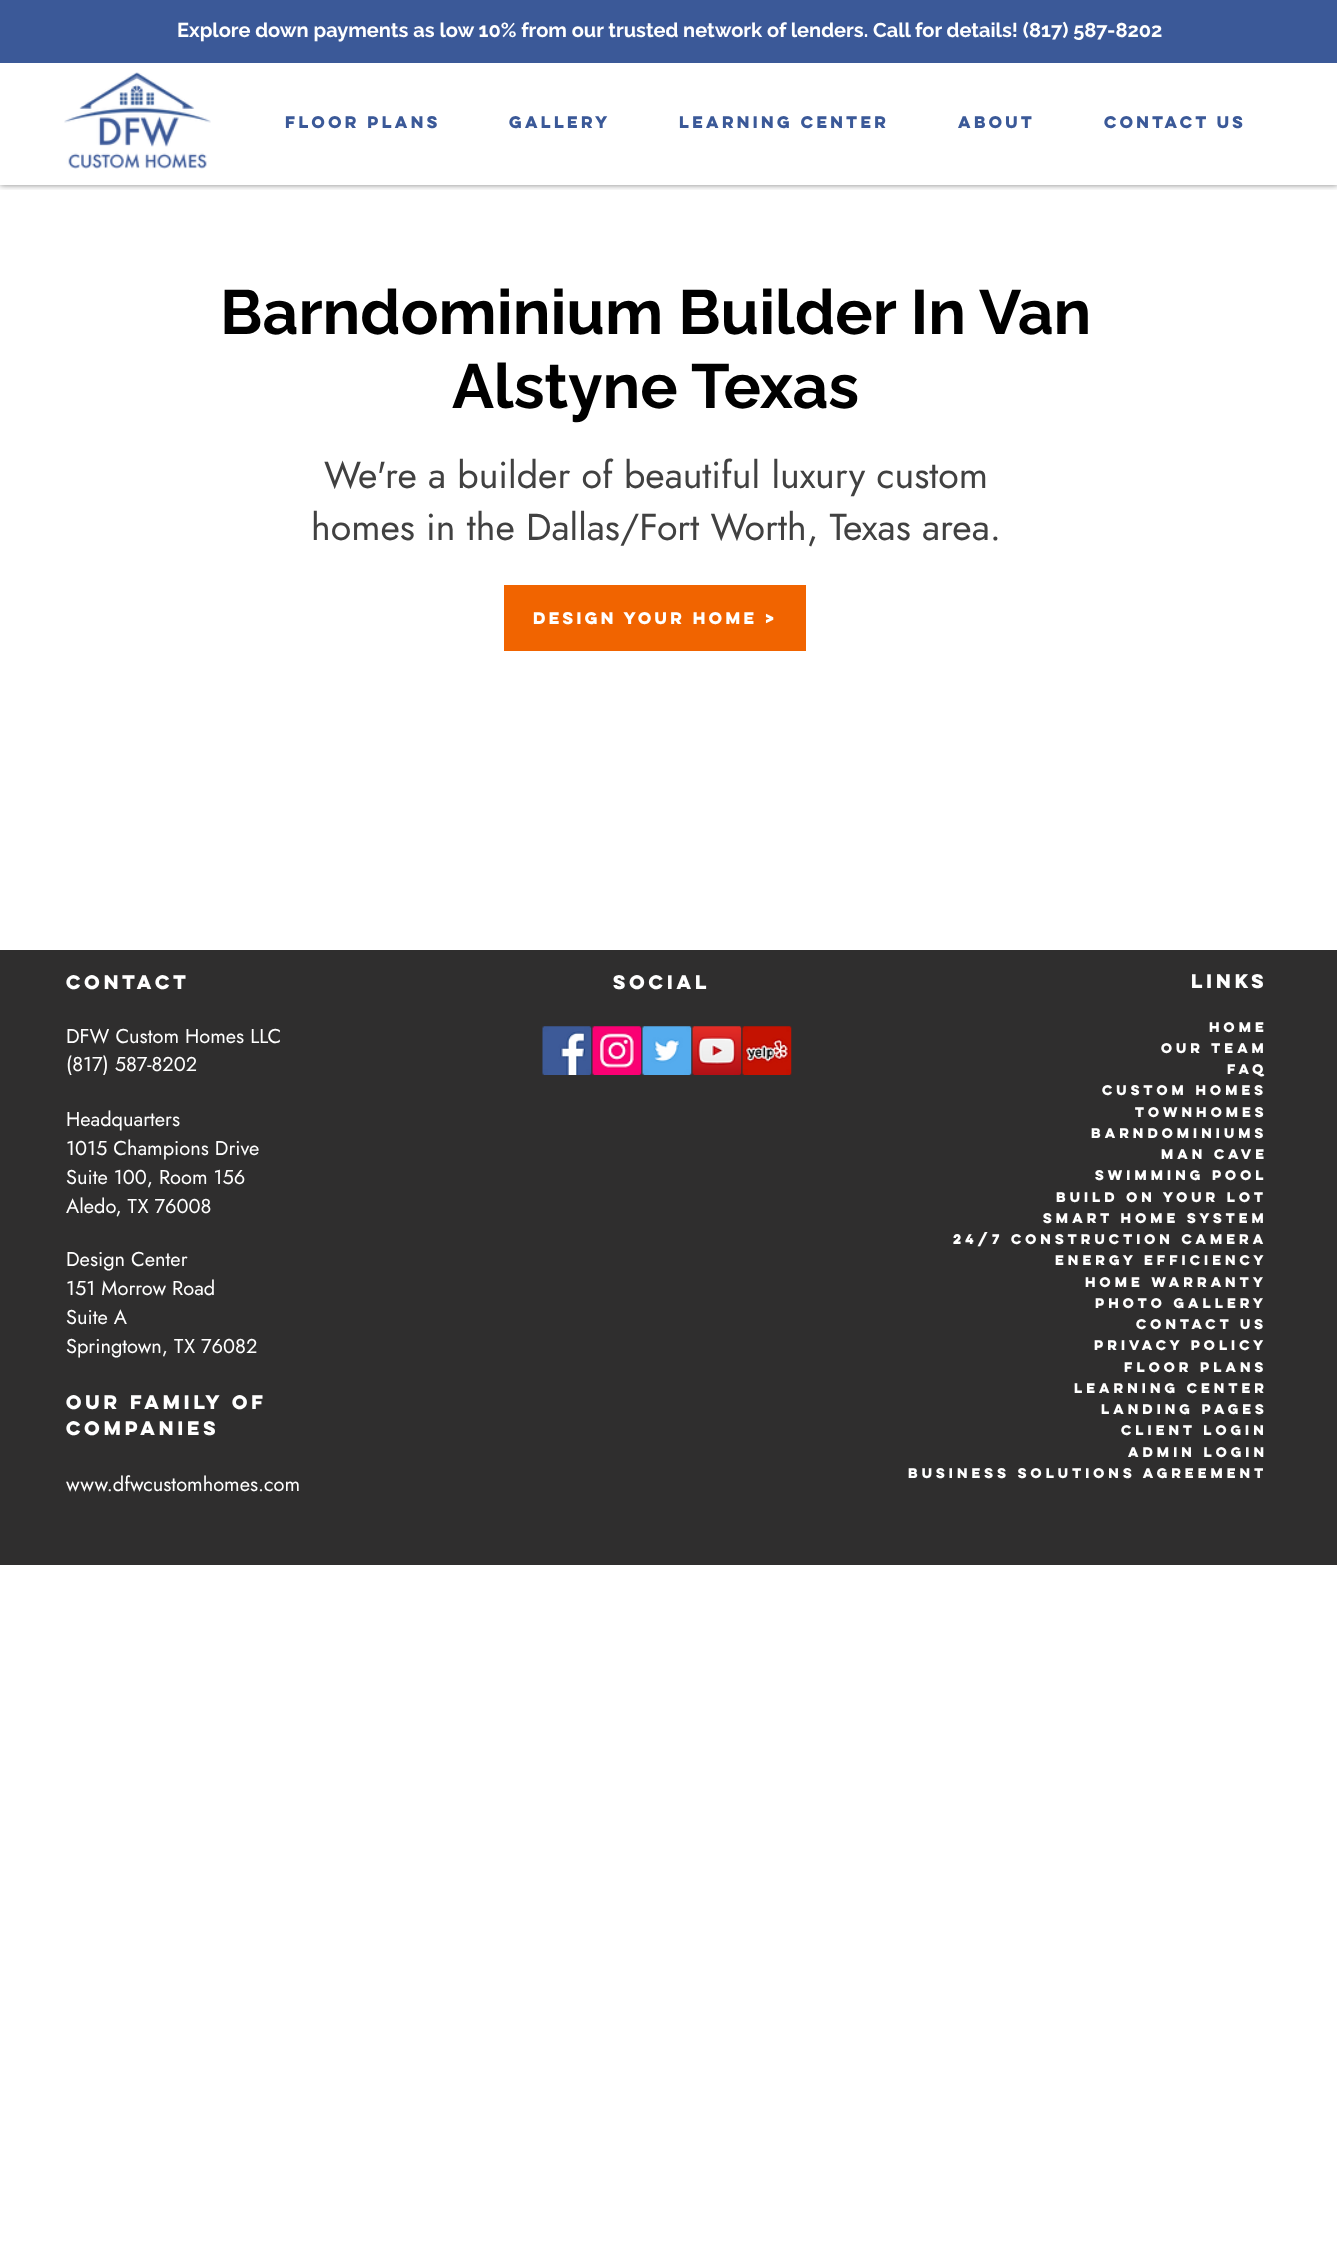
<svg xmlns="http://www.w3.org/2000/svg" width="1337" height="2255" viewBox="0 0 1337 2255">
  <defs>
    <clipPath id="clip1"><path d="M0 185h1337v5H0z"/></clipPath>
  </defs>
  <rect width="100%" height="100%" fill="#fff"/>
  <g clip-path="url(#clip1)">
    <path d="M0 0h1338v185H0z" fill="#00000080" filter="blur(3px)"/>
  </g>
  <path d="M0 0h1337v63H0z" fill="#3b5998"/>
  <image x="64" y="72" width="147" height="97" href="img/1.png"/>
  <path d="M504 585h302v66H504z" fill="#f16400"/>
  <path d="M0 950h1337v615H0z" fill="#2f2e2e"/>
  <image x="542" y="1026" width="50" height="49" href="img/2.png"/>
  <image x="592" y="1026" width="50" height="49" href="img/3.png"/>
  <image x="642" y="1026" width="50" height="49" href="img/4.png"/>
  <image x="692" y="1026" width="50" height="49" href="img/5.png"/>
  <image x="742" y="1026" width="50" height="49" href="img/6.png"/>
  <text x="177" y="37" font-family="Raleway" font-size="20" font-weight="bold" fill="#fff">Explore down payments as low 10% from our trusted network of lenders. Call for details! (817) 587-8202</text>
  <g font-family="'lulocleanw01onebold'" font-size="15" font-weight="bold" fill="#3b5998">
    <text x="285" y="128">FLOOR PLANS</text>
    <text x="509" y="128">GALLERY</text>
    <text x="679" y="128">LEARNING CENTER</text>
    <text x="958" y="128">ABOUT</text>
    <text x="1104" y="128">CONTACT US</text>
  </g>
  <g font-family="Raleway" font-size="62.5" font-weight="bold" fill="#000">
    <text x="220" y="334">Barndominium Builder In Van</text>
    <text x="452" y="408">Alstyne Texas</text>
  </g>
  <g font-family="Jost" font-size="37.5" fill="#414141">
    <text x="324" y="488">We're a builder of beautiful luxury custom</text>
    <text x="311" y="540">homes in the Dallas/Fort Worth, Texas area.</text>
  </g>
  <text x="533" y="624" font-family="'lulocleanw01onebold'" font-size="15" font-weight="bold" fill="#fff">Design Your Home &gt;</text>
  <g font-family="'lulocleanw01onebold'" font-size="17.5" font-weight="bold" fill="#fff">
    <text x="66" y="989">Conta</text>
    <text x="155" y="989">ct</text>
  </g>
  <g font-family="Jost" font-size="20" fill="#fff">
    <text x="66" y="1043">DFW Custom Homes LLC</text>
    <text x="66" y="1071">(817) 587-8202</text>
    <text x="66" y="1126">Headquarters</text>
    <text x="66" y="1155">1015 Champions Drive</text>
    <text x="66" y="1184">Suite 100, Room 156</text>
    <text x="66" y="1213">Aledo, TX 76008</text>
    <text x="66" y="1266">Design Center</text>
    <text x="66" y="1295">151 Morrow Road</text>
    <text x="66" y="1324">Suite A</text>
    <text x="66" y="1353">Springtown, TX 76082</text>
  </g>
  <g font-family="'lulocleanw01onebold'" font-size="17.5" font-weight="bold" fill="#fff">
    <text x="66" y="1409">Our Family</text>
    <text x="232" y="1409">Of</text>
    <text x="66" y="1435">Companies</text>
  </g>
  <text x="66" y="1491" font-family="Jost" font-size="20" fill="#fff">www.dfwcustomhomes.com</text>
  <g font-family="'lulocleanw01onebold'" font-size="17.5" font-weight="bold" fill="#fff">
    <text x="613" y="989">Social</text>
    <text x="1191" y="988">Links</text>
  </g>
  <g font-family="'lulocleanw01onebold'" font-size="12.5" font-weight="bold" letter-spacing="1.25" fill="#fff">
    <text x="1209" y="1032">Home</text>
    <text x="1161" y="1053">Our Team</text>
    <text x="1227" y="1074">FAQ</text>
    <text x="1102" y="1095">Custom Homes</text>
    <text x="1135" y="1117">Townhomes</text>
    <text x="1091" y="1138">Barndominiums</text>
    <text x="1161" y="1159">Man Cave</text>
    <text x="1095" y="1180">Swimming Pool</text>
    <text x="1056" y="1202">Build On Your Lot</text>
    <text x="1043" y="1223">Smart Home System</text>
    <text x="953" y="1244">24/7 Construction Camera</text>
    <text x="1055" y="1265">Energy Efficiency</text>
    <text x="1085" y="1287">Home Warranty</text>
    <text x="1095" y="1308">Photo Gallery</text>
    <text x="1136" y="1329">Contact Us</text>
    <text x="1094" y="1350">Privacy Policy</text>
    <text x="1124" y="1372">Floor Plans</text>
    <text x="1074" y="1393">Learning Center</text>
    <text x="1101" y="1414">Landing Pages</text>
    <text x="1121" y="1435">Client Login</text>
    <text x="1128" y="1457">Admin Login</text>
    <text x="908" y="1478">BUSINESS SOLUTIONS AGREEMENT</text>
  </g>
</svg>
